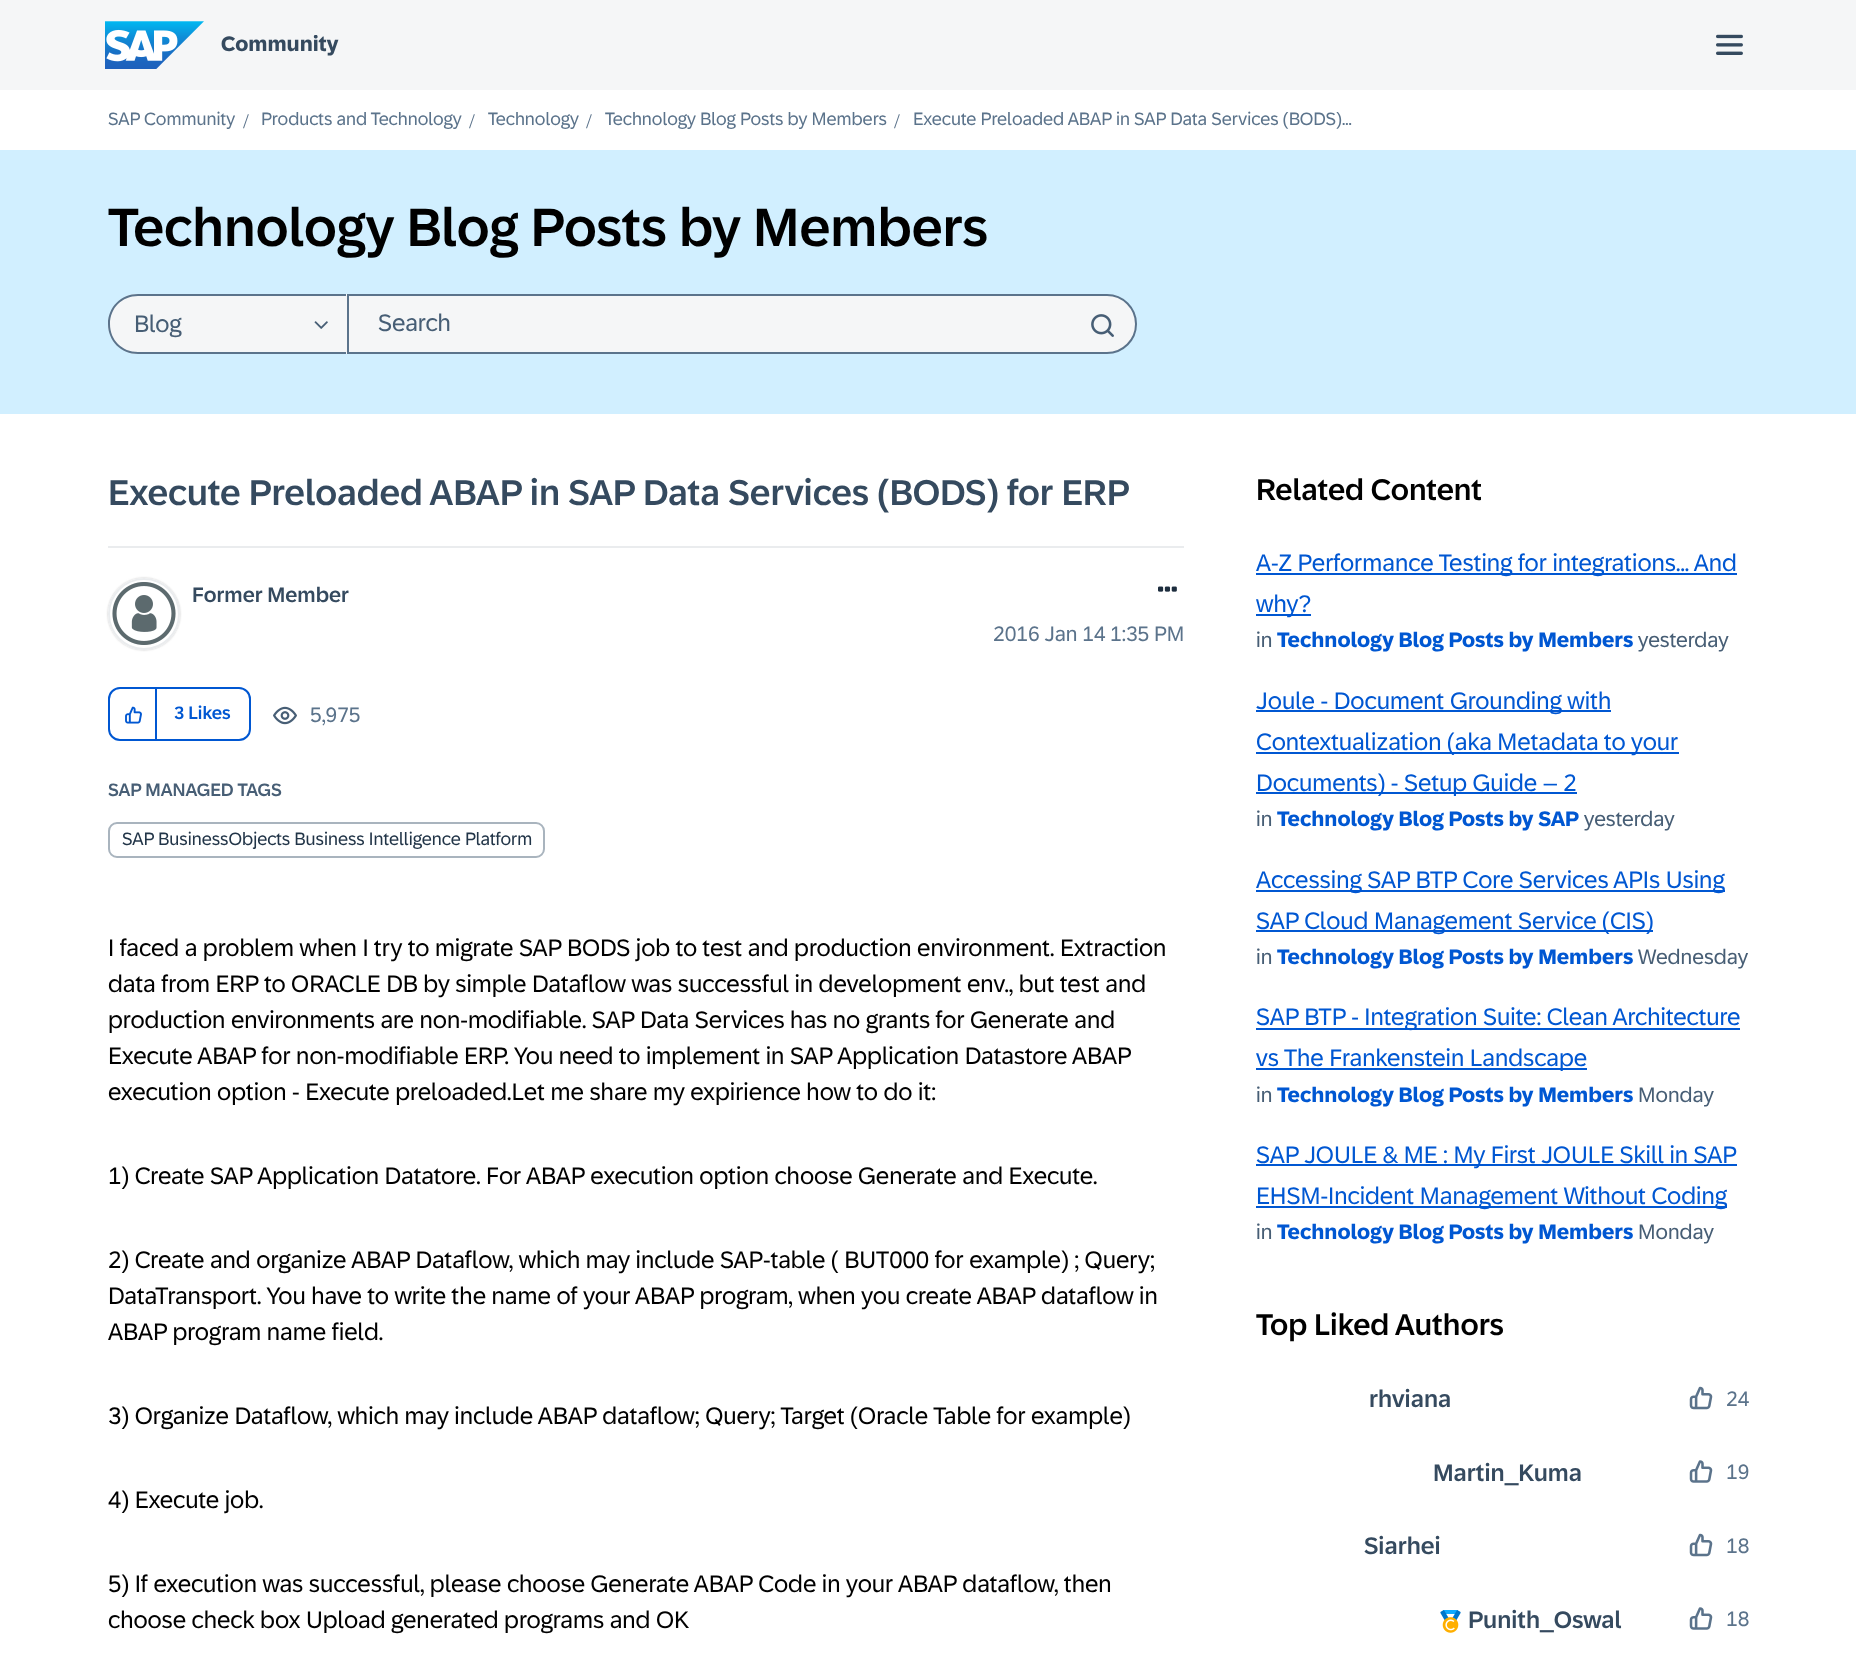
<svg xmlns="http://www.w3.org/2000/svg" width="1856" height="1670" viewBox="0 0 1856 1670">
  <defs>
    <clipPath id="clip1"><path d="M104 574H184V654H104ZM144 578C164 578 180 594 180 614C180 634 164 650 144 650C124 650 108 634 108 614C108 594 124 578 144 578Z" clip-rule="evenodd"/></clipPath>
  </defs>
  <rect width="100%" height="100%" fill="#fff"/>
  <path d="M0 0h1856v90H0z" fill="#f5f6f7"/>
  <image x="105" y="21" width="99" height="48" href="img/1.png"/>
  <image x="1716" y="34" width="27" height="21" href="img/2.png"/>
  <path d="M0 150h1856v264H0z" fill="#d1efff"/>
  <path d="M138 294H347V354H138C121.5 354 108 340.5 108 324C108 307.5 121.5 294 138 294Z" fill="#f5f6f7"/>
  <path d="M138 294H346V354H138C121 354 108 341 108 324C108 307 121 294 138 294ZM138 296H346V352H138C122 352 110 340 110 324C110 308 122 296 138 296Z" fill="#5b738b" fill-rule="evenodd"/>
  <image x="314" y="321" width="14" height="8" href="img/3.png"/>
  <path d="M348 295H1107C1123 295 1136 308 1136 324C1136 340 1123 353 1107 353H348Z" fill="#f5f6f7" stroke="#5b738b" stroke-width="2"/>
  <image x="1091" y="314" width="23" height="23" href="img/4.png"/>
  <path d="M108 546h1076v2H108z" fill="#eaecee"/>
  <g clip-path="url(#clip1)">
    <rect x="108" y="578" width="72" height="72" rx="36" fill="#c4c4c4" filter="blur(1px)"/>
  </g>
  <circle cx="144" cy="614" r="35" fill="none" stroke="#eaecee" stroke-width="2"/>
  <image x="112" y="582" width="64" height="63" href="img/5.png"/>
  <image x="1158" y="586" width="19" height="6" href="img/6.png"/>
  <rect x="109" y="688" width="141" height="52" rx="11" fill="none" stroke="#0057d2" stroke-width="2"/>
  <path d="M155 689h2v52H155z" fill="#0057d2"/>
  <image x="125" y="706" width="17" height="18" href="img/7.png"/>
  <image x="273" y="706" width="24" height="19" href="img/8.png"/>
  <rect x="109" y="823" width="435" height="34" rx="8" fill="none" stroke="#a9b4be" stroke-width="2"/>
  <path d="M1256 573h481v2H1256z" fill="#0057d2"/>
  <path d="M1256 614h55v2H1256z" fill="#0057d2"/>
  <path d="M1256 710h355v2H1256z" fill="#0057d2"/>
  <path d="M1256 752h423v2H1256z" fill="#0057d2"/>
  <path d="M1256 792h321v2H1256z" fill="#0057d2"/>
  <path d="M1256 890h469v2H1256z" fill="#0057d2"/>
  <path d="M1256 930h397v2H1256z" fill="#0057d2"/>
  <path d="M1256 1028h484v2H1256z" fill="#0057d2"/>
  <path d="M1256 1068h331v2H1256z" fill="#0057d2"/>
  <path d="M1256 1164h481v2H1256z" fill="#0057d2"/>
  <path d="M1256 1206h471v2H1256z" fill="#0057d2"/>
  <image x="1689" y="1386" width="24" height="24" href="img/9.png"/>
  <image x="1689" y="1460" width="24" height="23" href="img/10.png"/>
  <image x="1689" y="1533" width="24" height="24" href="img/9.png"/>
  <image x="1440" y="1610" width="21" height="23" href="img/11.png"/>
  <image x="1689" y="1607" width="24" height="23" href="img/10.png"/>
  <text x="221" y="51" font-family="'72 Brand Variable'" font-size="21" font-weight="bold" fill="#354a5f">Community</text>
  <text x="108" y="125" font-family="'72 Brand Variable'" font-size="18" fill="#5b738b">SAP Community</text>
  <text x="243" y="128" font-family="Liberation Serif" font-size="21" fill="#5b738b">/</text>
  <text x="261" y="125" font-family="'72 Brand Variable'" font-size="18" fill="#5b738b">Products and Technology</text>
  <text x="469" y="128" font-family="Liberation Serif" font-size="21" fill="#5b738b">/</text>
  <text x="488" y="125" font-family="'72 Brand Variable'" font-size="18" fill="#5b738b">Technology</text>
  <text x="586" y="128" font-family="Liberation Serif" font-size="21" fill="#5b738b">/</text>
  <text x="605" y="125" font-family="'72 Brand Variable'" font-size="18" fill="#5b738b">Technology Blog Posts by Members</text>
  <text x="894" y="128" font-family="Liberation Serif" font-size="21" fill="#5b738b">/</text>
  <text x="913" y="125" font-family="'72 Brand Variable'" font-size="18" fill="#5b738b">Execute Preloaded ABAP in SAP Data Services (BODS)...</text>
  <text x="108" y="246" font-family="'72 Brand Variable'" font-size="54" font-weight="500" fill="#000">Technology Blog Posts by Members</text>
  <g font-family="'72 Brand Variable'" font-size="24" fill="#475e75">
    <text x="134" y="332">Blog</text>
    <text x="378" y="331">Search</text>
  </g>
  <text x="108" y="505" font-family="'72 Brand Variable'" font-size="36" font-weight="500" fill="#354a5f">Execute Preloaded ABAP in SAP Data Services (BODS) for ERP</text>
  <text x="192" y="602" font-family="'72 Brand Variable'" font-size="21" font-weight="500" fill="#354a5f">Former Member</text>
  <g font-family="'72 Brand Variable'" font-size="21" fill="#5b738b">
    <text x="993" y="641">2016 Jan 14</text>
    <text x="1110" y="641">1:35 PM</text>
  </g>
  <text x="174" y="719" font-family="'72 Brand Variable'" font-size="18" font-weight="500" fill="#0057d2">3 Likes</text>
  <text x="310" y="722" font-family="'72 Brand Variable'" font-size="21" fill="#5b738b">5,975</text>
  <text x="108" y="796" font-family="'72 Brand Variable'" font-size="18" font-weight="500" fill="#475e75">SAP MANAGED TAGS</text>
  <text x="122" y="845" font-family="'72 Brand Variable'" font-size="18" fill="#223548">SAP BusinessObjects Business Intelligence Platform</text>
  <g font-family="'72 Brand Variable'" font-size="24" fill="#000">
    <text x="108" y="956">I faced a problem when I try to migrate SAP BODS job to test and production environment. Extraction</text>
    <text x="108" y="992">data from ERP to ORACLE DB by simple Dataflow was successful in development env., but test and</text>
    <text x="108" y="1028">production environments are non-modifiable. SAP Data Services has no grants for Generate and</text>
    <text x="108" y="1064">Execute ABAP for non-modifiable ERP. You need to implement in SAP Application Datastore ABAP</text>
    <text x="108" y="1100">execution option - Execute preloaded.Let me share my expirience how to do it:</text>
    <text x="108" y="1184">1) Create SAP Application Datatore. For ABAP execution option choose Generate and Execute.</text>
    <text x="108" y="1268">2) Create and organize ABAP Dataflow, which may include SAP-table ( BUT000 for example) ; Query;</text>
    <text x="108" y="1304">DataTransport. You have to write the name of your ABAP program, when you create ABAP dataflow in</text>
    <text x="108" y="1340">ABAP program name field.</text>
    <text x="108" y="1424">3) Organize Dataflow, which may include ABAP dataflow; Query; Target (Oracle Table for example)</text>
    <text x="108" y="1508">4) Execute job.</text>
    <text x="108" y="1592">5) If execution was successful, please choose Generate ABAP Code in your ABAP dataflow, then</text>
    <text x="108" y="1628">choose check box Upload generated programs and OK</text>
  </g>
  <text x="1256" y="500" font-family="'72 Brand Variable'" font-size="30" font-weight="500" fill="#000">Related Content</text>
  <g font-family="'72 Brand Variable'" font-size="24" fill="#0057d2">
    <text x="1256" y="571">A-Z Performance Testing for integrations... And</text>
    <text x="1256" y="612">why?</text>
  </g>
  <text x="1256" y="647" font-family="'72 Brand Variable'" font-size="21" fill="#475e75">in</text>
  <text x="1277" y="647" font-family="'72 Brand Variable'" font-size="21" font-weight="bold" fill="#0057d2">Technology Blog Posts by Members</text>
  <text x="1638" y="647" font-family="'72 Brand Variable'" font-size="21" fill="#475e75">yesterday</text>
  <g font-family="'72 Brand Variable'" font-size="24" fill="#0057d2">
    <text x="1256" y="709">Joule - Document Grounding with</text>
    <text x="1256" y="750">Contextualization (aka Metadata to your</text>
    <text x="1256" y="791">Documents) - Setup Guide – 2</text>
  </g>
  <text x="1256" y="826" font-family="'72 Brand Variable'" font-size="21" fill="#475e75">in</text>
  <text x="1277" y="826" font-family="'72 Brand Variable'" font-size="21" font-weight="bold" fill="#0057d2">Technology Blog Posts by SAP</text>
  <text x="1584" y="826" font-family="'72 Brand Variable'" font-size="21" fill="#475e75">yesterday</text>
  <g font-family="'72 Brand Variable'" font-size="24" fill="#0057d2">
    <text x="1256" y="888">Accessing SAP BTP Core Services APIs Using</text>
    <text x="1256" y="929">SAP Cloud Management Service (CIS)</text>
  </g>
  <text x="1256" y="964" font-family="'72 Brand Variable'" font-size="21" fill="#475e75">in</text>
  <text x="1277" y="964" font-family="'72 Brand Variable'" font-size="21" font-weight="bold" fill="#0057d2">Technology Blog Posts by Members</text>
  <text x="1638" y="964" font-family="'72 Brand Variable'" font-size="21" fill="#475e75">Wednesday</text>
  <g font-family="'72 Brand Variable'" font-size="24" fill="#0057d2">
    <text x="1256" y="1025">SAP BTP - Integration Suite: Clean Architecture</text>
    <text x="1256" y="1066">vs The Frankenstein Landscape</text>
  </g>
  <text x="1256" y="1102" font-family="'72 Brand Variable'" font-size="21" fill="#475e75">in</text>
  <text x="1277" y="1102" font-family="'72 Brand Variable'" font-size="21" font-weight="bold" fill="#0057d2">Technology Blog Posts by Members</text>
  <text x="1638" y="1102" font-family="'72 Brand Variable'" font-size="21" fill="#475e75">Monday</text>
  <g font-family="'72 Brand Variable'" font-size="24" fill="#0057d2">
    <text x="1256" y="1163">SAP JOULE &amp; ME : My First JOULE Skill in SAP</text>
    <text x="1256" y="1204">EHSM-Incident Management Without Coding</text>
  </g>
  <text x="1256" y="1239" font-family="'72 Brand Variable'" font-size="21" fill="#475e75">in</text>
  <text x="1277" y="1239" font-family="'72 Brand Variable'" font-size="21" font-weight="bold" fill="#0057d2">Technology Blog Posts by Members</text>
  <text x="1638" y="1239" font-family="'72 Brand Variable'" font-size="21" fill="#475e75">Monday</text>
  <text x="1256" y="1335" font-family="'72 Brand Variable'" font-size="30" font-weight="500" fill="#000">Top Liked Authors</text>
  <text x="1369" y="1407" font-family="'72 Brand Variable'" font-size="24" font-weight="500" fill="#354a5f">rhviana</text>
  <text x="1726" y="1406" font-family="'72 Brand Variable'" font-size="21" fill="#5b738b">24</text>
  <text x="1433" y="1481" font-family="'72 Brand Variable'" font-size="24" font-weight="500" fill="#354a5f">Martin_Kuma</text>
  <text x="1726" y="1479" font-family="'72 Brand Variable'" font-size="21" fill="#5b738b">19</text>
  <text x="1364" y="1554" font-family="'72 Brand Variable'" font-size="24" font-weight="500" fill="#354a5f">Siarhei</text>
  <text x="1726" y="1553" font-family="'72 Brand Variable'" font-size="21" fill="#5b738b">18</text>
  <text x="1468" y="1628" font-family="'72 Brand Variable'" font-size="24" font-weight="500" fill="#354a5f">Punith_Oswal</text>
  <text x="1726" y="1626" font-family="'72 Brand Variable'" font-size="21" fill="#5b738b">18</text>
</svg>
